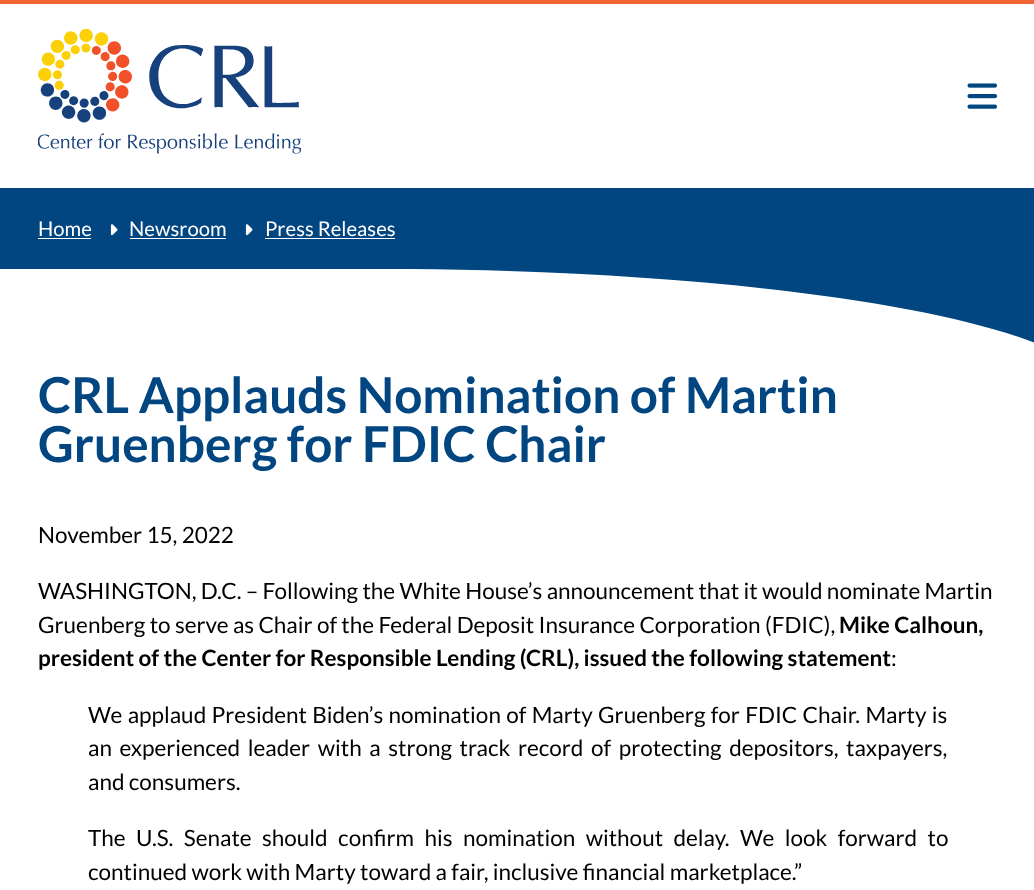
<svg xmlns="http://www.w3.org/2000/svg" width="1034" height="890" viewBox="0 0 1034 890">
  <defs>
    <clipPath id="clip1"><path d="M410 269h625v175H410z"/></clipPath>
  </defs>
  <rect width="100%" height="100%" fill="#fff"/>
  <path d="M0 0h1034v4H0z" fill="#f26533"/>
  <image x="38" y="29" width="263" height="125" href="img/1.png"/>
  <image x="967" y="83" width="30" height="26" href="img/2.png"/>
  <path d="M0 188h1034v81H0z" fill="#024681"/>
  <path d="M38 238h53v1H38z" fill="#fff"/>
  <image x="110" y="224" width="8" height="12" href="img/3.png"/>
  <path d="M130 238h96v1H130z" fill="#fff"/>
  <image x="245" y="224" width="8" height="12" href="img/3.png"/>
  <path d="M265 238h130v1H265z" fill="#fff"/>
  <g clip-path="url(#clip1)">
    <path d="M629 206C305 206 31 243-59 295C62 278 214 269 379 269C776 269 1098 325 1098 394C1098 406 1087 419 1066 430C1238 407 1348 371 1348 331C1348 262 1026 206 629 206Z" fill="#024681"/>
  </g>
  <g font-family="Lato" font-size="20.25" fill="#fff">
    <text x="38" y="236">Home</text>
    <text x="129" y="236">Newsroom</text>
    <text x="265" y="236">Press Releases</text>
  </g>
  <g font-family="Lato" font-size="49.5" font-weight="bold" fill="#024681">
    <text x="38" y="413">CRL Applauds Nomination of Martin</text>
    <text x="38" y="462">Gruenberg for FDIC Chair</text>
  </g>
  <g font-family="Lato" font-size="22.5" fill="#000">
    <text x="38" y="543">November 15, 2022</text>
    <text x="38" y="599">WASHINGTON, D.C. – Following the White House’s announcement that it would nominate Martin</text>
    <text x="38" y="633">Gruenberg to serve as Chair of the Federal Deposit Insurance Corporation (FDIC),</text>
  </g>
  <g font-family="Lato" font-size="22.5" font-weight="bold" fill="#000">
    <text x="839" y="633">Mike Calhoun,</text>
    <text x="38" y="666">president of the Center for Responsible Lending (CRL), issued the following statement</text>
  </g>
  <g font-family="Lato" font-size="22.5" fill="#000">
    <text x="891" y="666">:</text>
    <text x="88" y="723" word-spacing="1">We applaud President Biden’s nomination of Marty Gruenberg for FDIC Chair. Marty is</text>
    <text x="88" y="756" word-spacing="3.25">an experienced leader with a strong track record of protecting depositors, taxpayers,</text>
    <text x="88" y="790">and consumers.</text>
    <text x="88" y="846" word-spacing="6.1">The U.S. Senate should confirm his nomination without delay. We look forward to</text>
    <text x="88" y="880">continued work with Marty toward a fair, inclusive financial marketplace.”</text>
  </g>
</svg>
